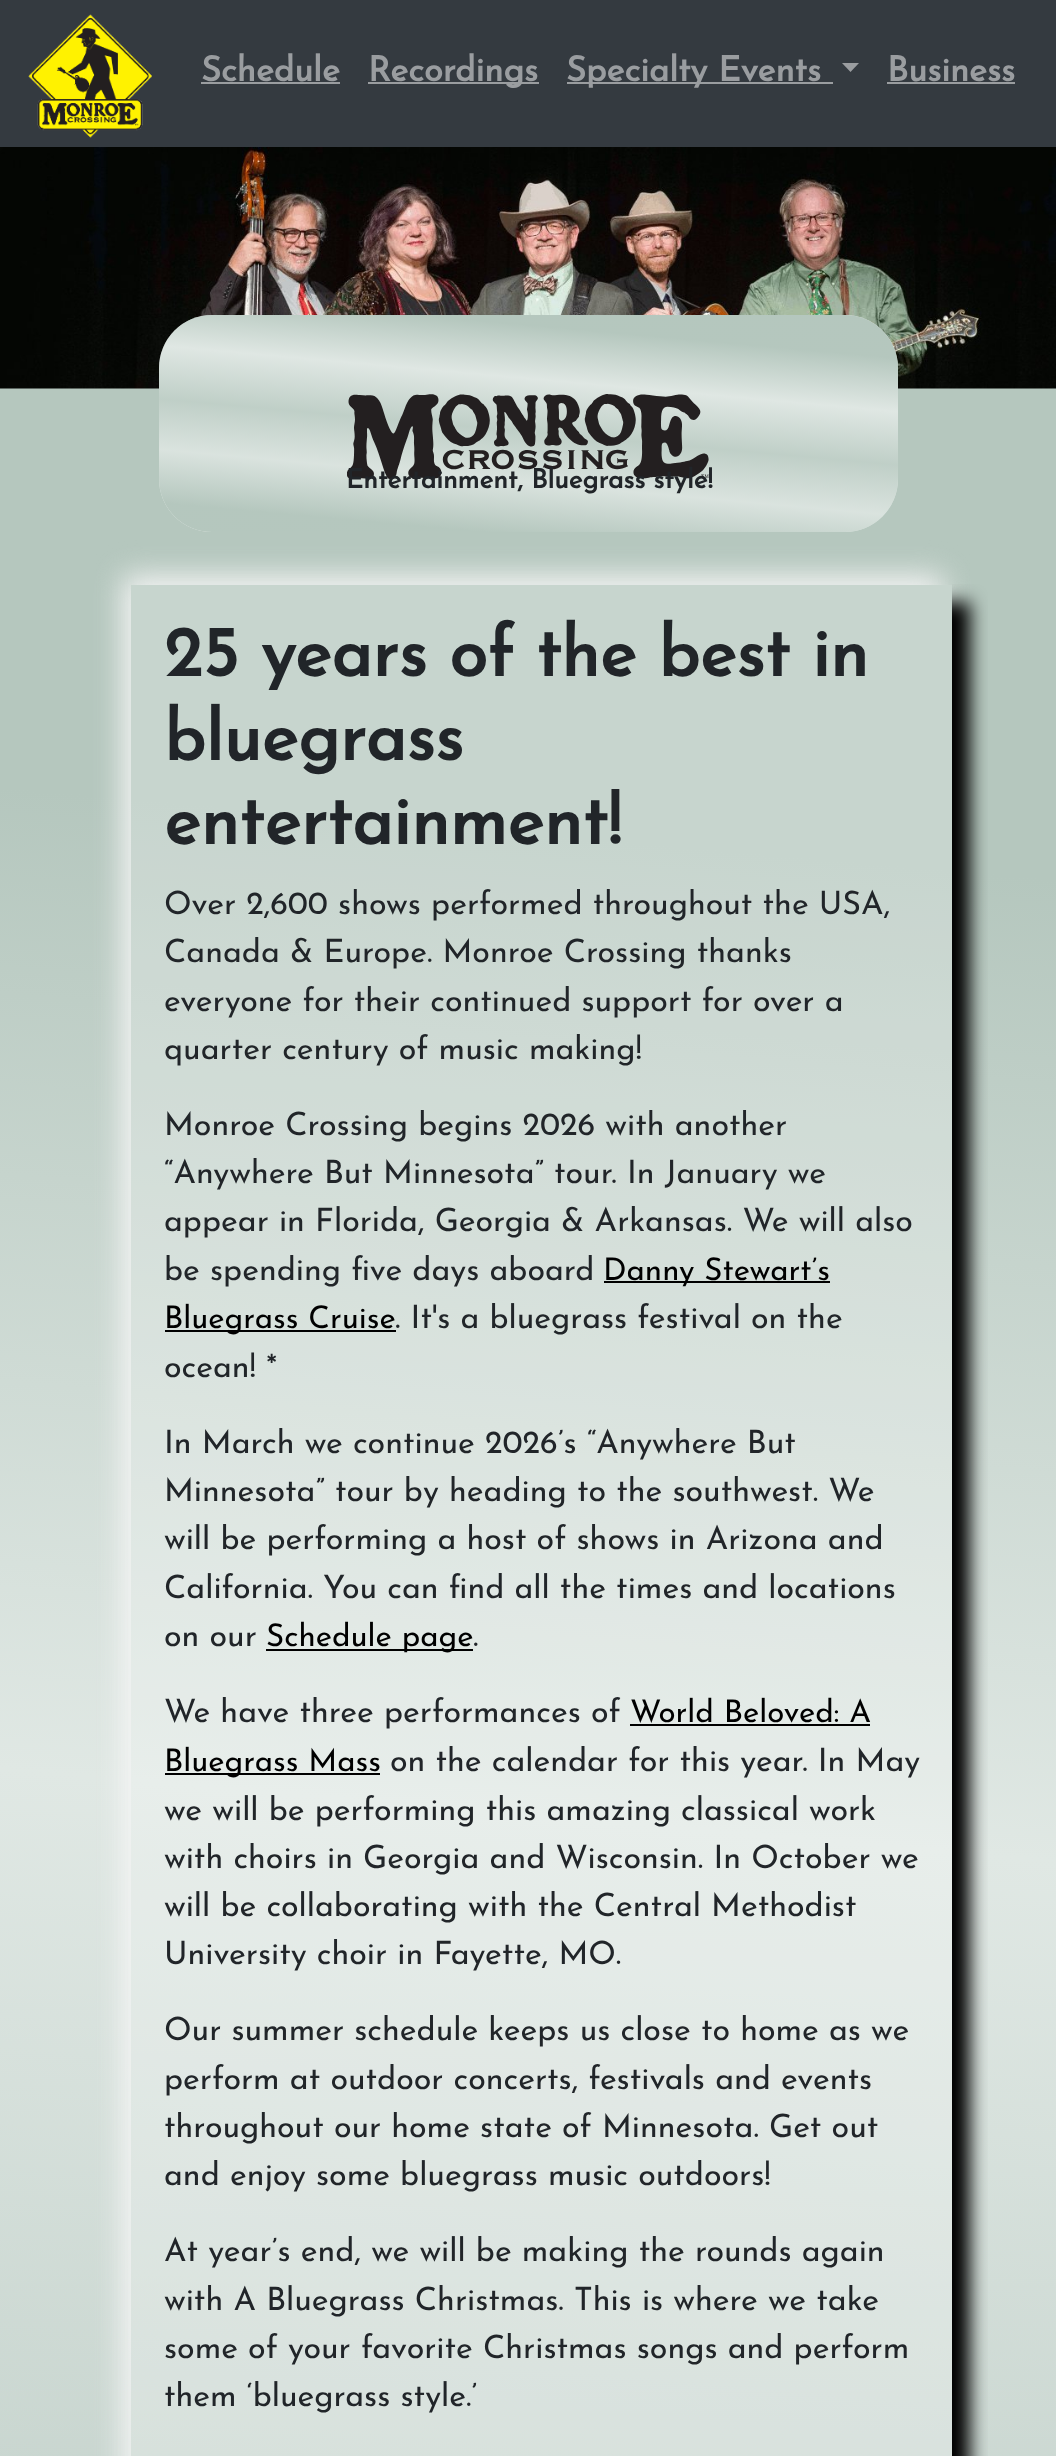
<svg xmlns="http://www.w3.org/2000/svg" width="1056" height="2456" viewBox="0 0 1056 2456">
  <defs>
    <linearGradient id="g1" gradientUnits="userSpaceOnUse" x1="304" y1="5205" x2="753" y2="78"><stop offset="0.1" stop-color="#b5c7be"/><stop offset="0.29" stop-color="#dbe4df"/><stop offset="0.47" stop-color="#c0cfc8"/><stop offset="0.66" stop-color="#e0e8e4"/><stop offset="0.85" stop-color="#b5c7be"/></linearGradient>
    <clipPath id="clip1"><path d="M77 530H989V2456H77ZM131 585H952V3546H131Z" clip-rule="evenodd"/></clipPath>
    <linearGradient id="g2" gradientUnits="userSpaceOnUse" x1="516" y1="563" x2="541" y2="284"><stop offset="0.1" stop-color="#95afa2" stop-opacity="0.7"/><stop offset="0.29" stop-color="#95afa2" stop-opacity="0.35"/><stop offset="0.47" stop-color="#95afa2" stop-opacity="0.6"/><stop offset="0.66" stop-color="#95afa2" stop-opacity="0.3"/><stop offset="0.85" stop-color="#95afa2" stop-opacity="0.7"/></linearGradient>
    <clipPath id="clip2"><path d="M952 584h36v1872H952z"/></clipPath>
  </defs>
  <rect width="100%" height="100%" fill="#fff"/>
  <path d="M0 0h1056v147H0z" fill="#343a40"/>
  <image x="28" y="14" width="124" height="124" href="img/1.png"/>
  <path d="M201 82h139v2H201z" fill="#9a9da0"/>
  <path d="M368 82h171v2H368z" fill="#9a9da0"/>
  <path d="M567 82h266v2H567z" fill="#9a9da0"/>
  <path d="M842 63H859L850.5 72Z" fill="#9a9da0"/>
  <path d="M887 82h128v2H887z" fill="#9a9da0"/>
  <path d="M0 388h1056v2068H0z" fill="url(#g1)"/>
  <image x="0" y="147" width="1056" height="242" href="img/2.png"/>
  <g clip-path="url(#clip1)">
    <path d="M123 576h820v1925H123z" fill="#f5f5f5" filter="blur(15px)"/>
  </g>
  <rect x="159" y="315" width="739" height="217" rx="53" fill="#fff"/>
  <rect x="159" y="315" width="739" height="217" rx="53" fill="url(#g2)"/>
  <image x="347" y="394" width="362" height="85" href="img/3.png"/>
  <g clip-path="url(#clip2)">
    <path d="M149 602h821v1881H149z" fill="#000" filter="blur(9px)"/>
  </g>
  <path d="M131 585h821v1871H131z" fill="#ffffff40"/>
  <path d="M604 1281h226v2H604z" fill="#000"/>
  <path d="M165 1330h231v2H165z" fill="#000"/>
  <path d="M266 1649h207v2H266z" fill="#000"/>
  <path d="M630 1724h240v2H630z" fill="#000"/>
  <path d="M165 1773h215v2H165z" fill="#000"/>
  <g font-family="Josefin Sans" font-size="34.5" font-weight="bold" fill="#9a9da0">
    <text x="201" y="81">Schedule</text>
    <text x="368" y="81">Recordings</text>
    <text x="566" y="81">Specialty Events</text>
    <text x="887" y="81">Business</text>
  </g>
  <text x="346" y="488" font-family="Josefin Sans" font-size="26.5" font-weight="bold" fill="#212529">Entertainment, Bluegrass style!</text>
  <g font-family="Josefin Sans" font-size="70" font-weight="bold" fill="#212529">
    <text x="164" y="676">25 years of the best in</text>
    <text x="164" y="760">bluegrass</text>
    <text x="164" y="844">entertainment!</text>
  </g>
  <g font-family="Josefin Sans" font-size="32.2" font-weight="100" fill="#212529">
    <text x="164" y="914">Over 2,600 shows performed throughout the USA,</text>
    <text x="164" y="962">Canada &amp; Europe. Monroe Crossing thanks</text>
    <text x="164" y="1011">everyone for their continued support for over a</text>
    <text x="164" y="1059">quarter century of music making!</text>
    <text x="164" y="1135">Monroe Crossing begins 2026 with another</text>
    <text x="164" y="1183">“Anywhere But Minnesota” tour. In January we</text>
    <text x="164" y="1231">appear in Florida, Georgia &amp; Arkansas. We will also</text>
    <text x="164" y="1280">be spending five days aboard</text>
  </g>
  <g font-family="Josefin Sans" font-size="31.25" font-weight="100" fill="#000">
    <text x="603" y="1280">Danny Stewart’s</text>
    <text x="164" y="1328">Bluegrass Cruise</text>
  </g>
  <g font-family="Josefin Sans" font-size="32.2" font-weight="100" fill="#212529">
    <text x="395" y="1328">. It's a bluegrass festival on the</text>
    <text x="164" y="1377">ocean! *</text>
    <text x="164" y="1453">In March we continue 2026’s “Anywhere But</text>
    <text x="164" y="1501">Minnesota” tour by heading to the southwest. We</text>
    <text x="164" y="1549">will be performing a host of shows in Arizona and</text>
    <text x="164" y="1598">California. You can find all the times and locations</text>
    <text x="164" y="1646">on our</text>
  </g>
  <text x="266" y="1646" font-family="Josefin Sans" font-size="31.25" font-weight="100" fill="#000">Schedule page</text>
  <g font-family="Josefin Sans" font-size="32.2" font-weight="100" fill="#212529">
    <text x="473" y="1646">.</text>
    <text x="164" y="1722">We have three performances of</text>
  </g>
  <g font-family="Josefin Sans" font-size="31.25" font-weight="100" fill="#000">
    <text x="630" y="1722">World Beloved: A</text>
    <text x="164" y="1771">Bluegrass Mass</text>
  </g>
  <g font-family="Josefin Sans" font-size="32.2" font-weight="100" fill="#212529">
    <text x="390" y="1771">on the calendar for this year. In May</text>
    <text x="164" y="1820">we will be performing this amazing classical work</text>
    <text x="164" y="1868">with choirs in Georgia and Wisconsin. In October we</text>
    <text x="164" y="1916">will be collaborating with the Central Methodist</text>
    <text x="164" y="1964">University choir in Fayette, MO.</text>
    <text x="164" y="2040">Our summer schedule keeps us close to home as we</text>
    <text x="164" y="2089">perform at outdoor concerts, festivals and events</text>
    <text x="164" y="2137">throughout our home state of Minnesota. Get out</text>
    <text x="164" y="2185">and enjoy some bluegrass music outdoors!</text>
    <text x="164" y="2261">At year’s end, we will be making the rounds again</text>
    <text x="164" y="2310">with A Bluegrass Christmas. This is where we take</text>
    <text x="164" y="2358">some of your favorite Christmas songs and perform</text>
    <text x="164" y="2406">them ‘bluegrass style.’</text>
  </g>
</svg>
